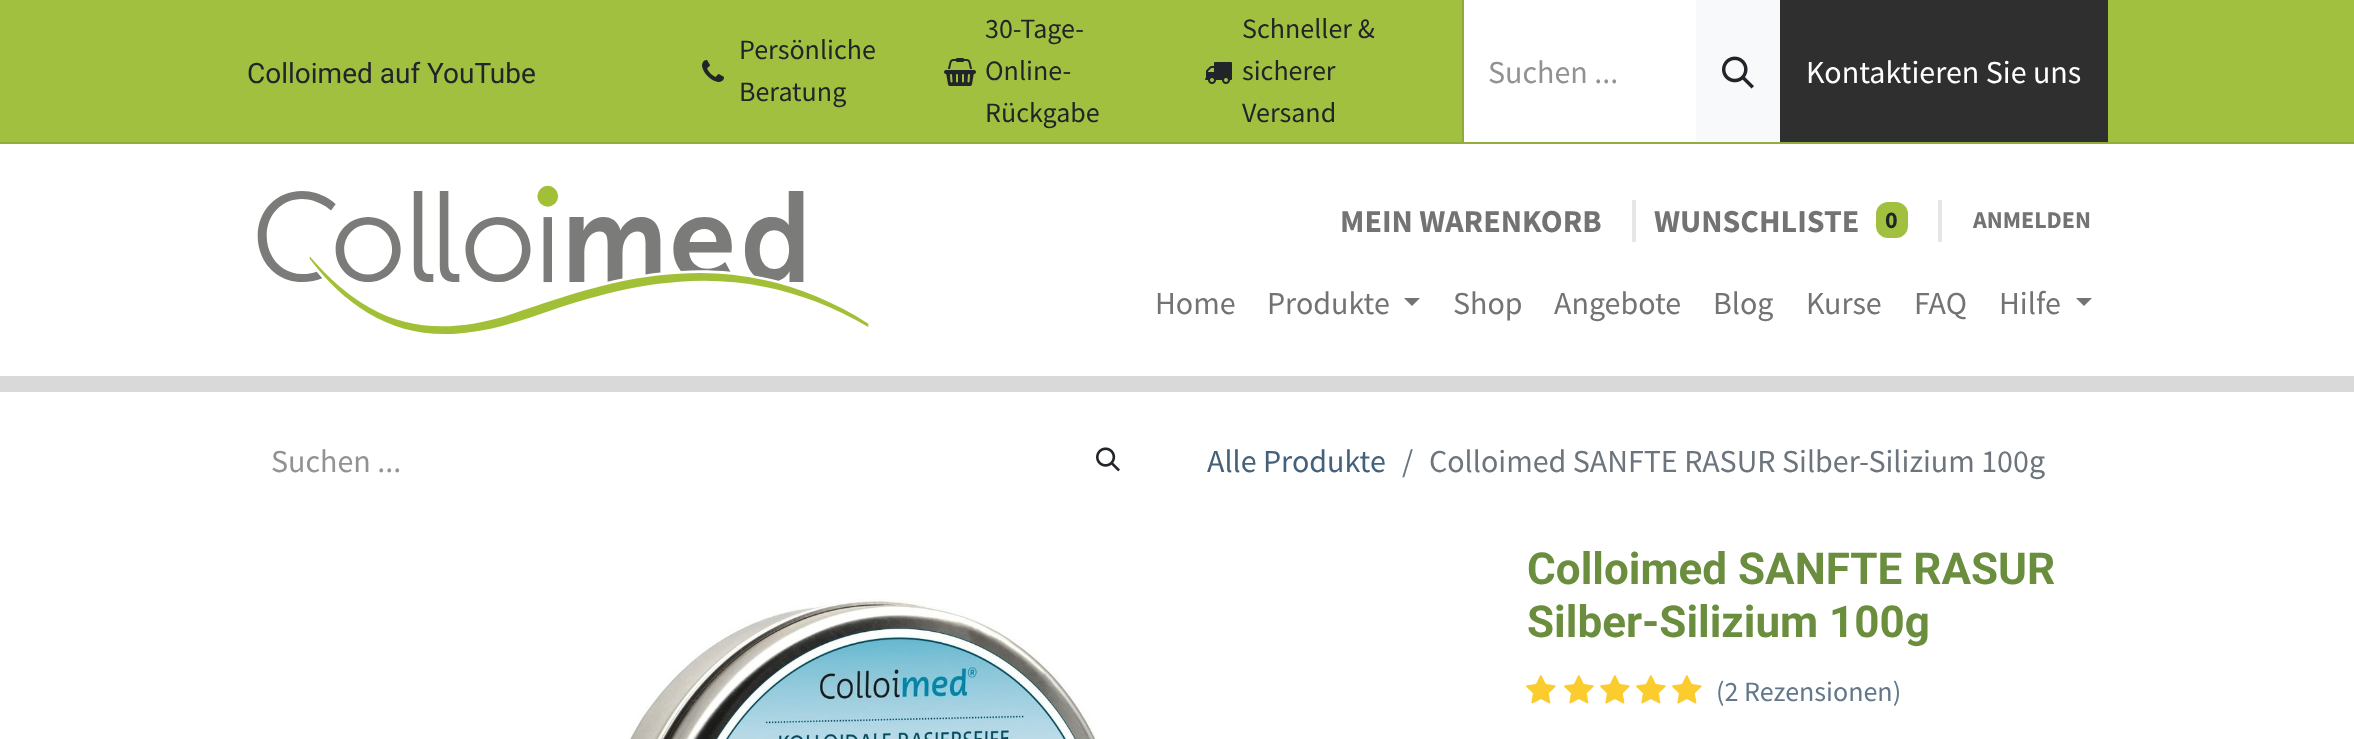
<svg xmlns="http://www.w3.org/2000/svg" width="2354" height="739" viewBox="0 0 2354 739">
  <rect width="100%" height="100%" fill="#fff"/>
  <path d="M0 376h2354v16H0z" fill="#d9d9d9"/>
  <path d="M0 0h2354v142H0z" fill="#a2c040"/>
  <path d="M0 142h2354v2H0z" fill="#92ad3a"/>
  <image x="702" y="60" width="22" height="22" href="img/1.png"/>
  <image x="944" y="58" width="32" height="28" href="img/2.png"/>
  <image x="1205" y="62" width="27" height="22" href="img/3.png"/>
  <path d="M1464 0h232v142H1464z" fill="#fff"/>
  <path d="M1462 0h2v142H1462z" fill="#8fa93d"/>
  <path d="M1696 0h84v142H1696z" fill="#f8f9fa"/>
  <image x="1722" y="56" width="32" height="33" href="img/4.png"/>
  <path d="M1780 0h328v142H1780z" fill="#2f2f2f"/>
  <image x="257" y="185" width="612" height="149" href="img/5.png"/>
  <path d="M1632 200h4v42H1632z" fill="#e6e6e6"/>
  <rect x="1876" y="202" width="32" height="36" rx="12" fill="#a2c040"/>
  <path d="M1938 200h4v42H1938z" fill="#e6e6e6"/>
  <path d="M1404 298H1420L1412 306Z" fill="#737373"/>
  <path d="M2076 298H2092L2084 306Z" fill="#737373"/>
  <image x="1096" y="447" width="24" height="25" href="img/6.png"/>
  <image x="629" y="599" width="468" height="140" href="img/7.png"/>
  <image x="1526" y="675" width="30" height="29" href="img/8.png"/>
  <image x="1564" y="675" width="30" height="29" href="img/8.png"/>
  <image x="1600" y="675" width="30" height="29" href="img/8.png"/>
  <image x="1636" y="675" width="30" height="29" href="img/8.png"/>
  <image x="1672" y="675" width="30" height="29" href="img/8.png"/>
  <text x="247" y="83" font-family="Roboto" font-size="28" fill="#212529">Colloimed auf YouTube</text>
  <g font-family="Source Sans Pro" font-size="28" fill="#212529">
    <text x="739" y="59">Persönliche</text>
    <text x="739" y="101">Beratung</text>
    <text x="985" y="38">30-Tage-</text>
    <text x="985" y="80">Online-</text>
    <text x="985" y="122">Rückgabe</text>
    <text x="1242" y="38">Schneller &amp;</text>
    <text x="1242" y="80">sicherer</text>
    <text x="1242" y="122">Versand</text>
  </g>
  <text x="1488" y="83" font-family="Source Sans Pro" font-size="32" fill="#909294">Suchen ...</text>
  <text x="1806" y="83" font-family="Source Sans Pro" font-size="32" fill="#fff">Kontaktieren Sie uns</text>
  <g font-family="Source Sans Pro" font-size="32" font-weight="bold" fill="#737373">
    <text x="1340" y="232">MEIN WARENKORB</text>
    <text x="1654" y="232">WUNSCHLISTE</text>
  </g>
  <text x="1885" y="228" font-family="Source Sans Pro" font-size="24" font-weight="bold" fill="#212529">0</text>
  <text x="1973" y="228" font-family="Source Sans Pro" font-size="24" font-weight="bold" fill="#737373">ANMELDEN</text>
  <g font-family="Source Sans Pro" font-size="32" fill="#737373">
    <text x="1155" y="314">Home</text>
    <text x="1267" y="314">Produkte</text>
    <text x="1453" y="314">Shop</text>
    <text x="1554" y="314">Angebote</text>
    <text x="1713" y="314">Blog</text>
    <text x="1806" y="314">Kurse</text>
    <text x="1914" y="314">FAQ</text>
    <text x="1999" y="314">Hilfe</text>
  </g>
  <text x="271" y="472" font-family="Source Sans Pro" font-size="32" fill="#909294">Suchen ...</text>
  <text x="1207" y="472" font-family="Source Sans Pro" font-size="32" fill="#44617b">Alle Produkte</text>
  <g font-family="Source Sans Pro" font-size="32" fill="#6c757d">
    <text x="1402" y="472">/</text>
    <text x="1429" y="472">Colloimed SANFTE RASUR Silber-Silizium 100g</text>
  </g>
  <g font-family="Roboto" font-size="44" font-weight="bold" fill="#6a8e3e">
    <text x="1527" y="584">Colloimed SANFTE RASUR</text>
    <text x="1527" y="637">Silber-Silizium 100g</text>
  </g>
  <text x="1716" y="701" font-family="Source Sans Pro" font-size="28" fill="#627789">(2 Rezensionen)</text>
</svg>
